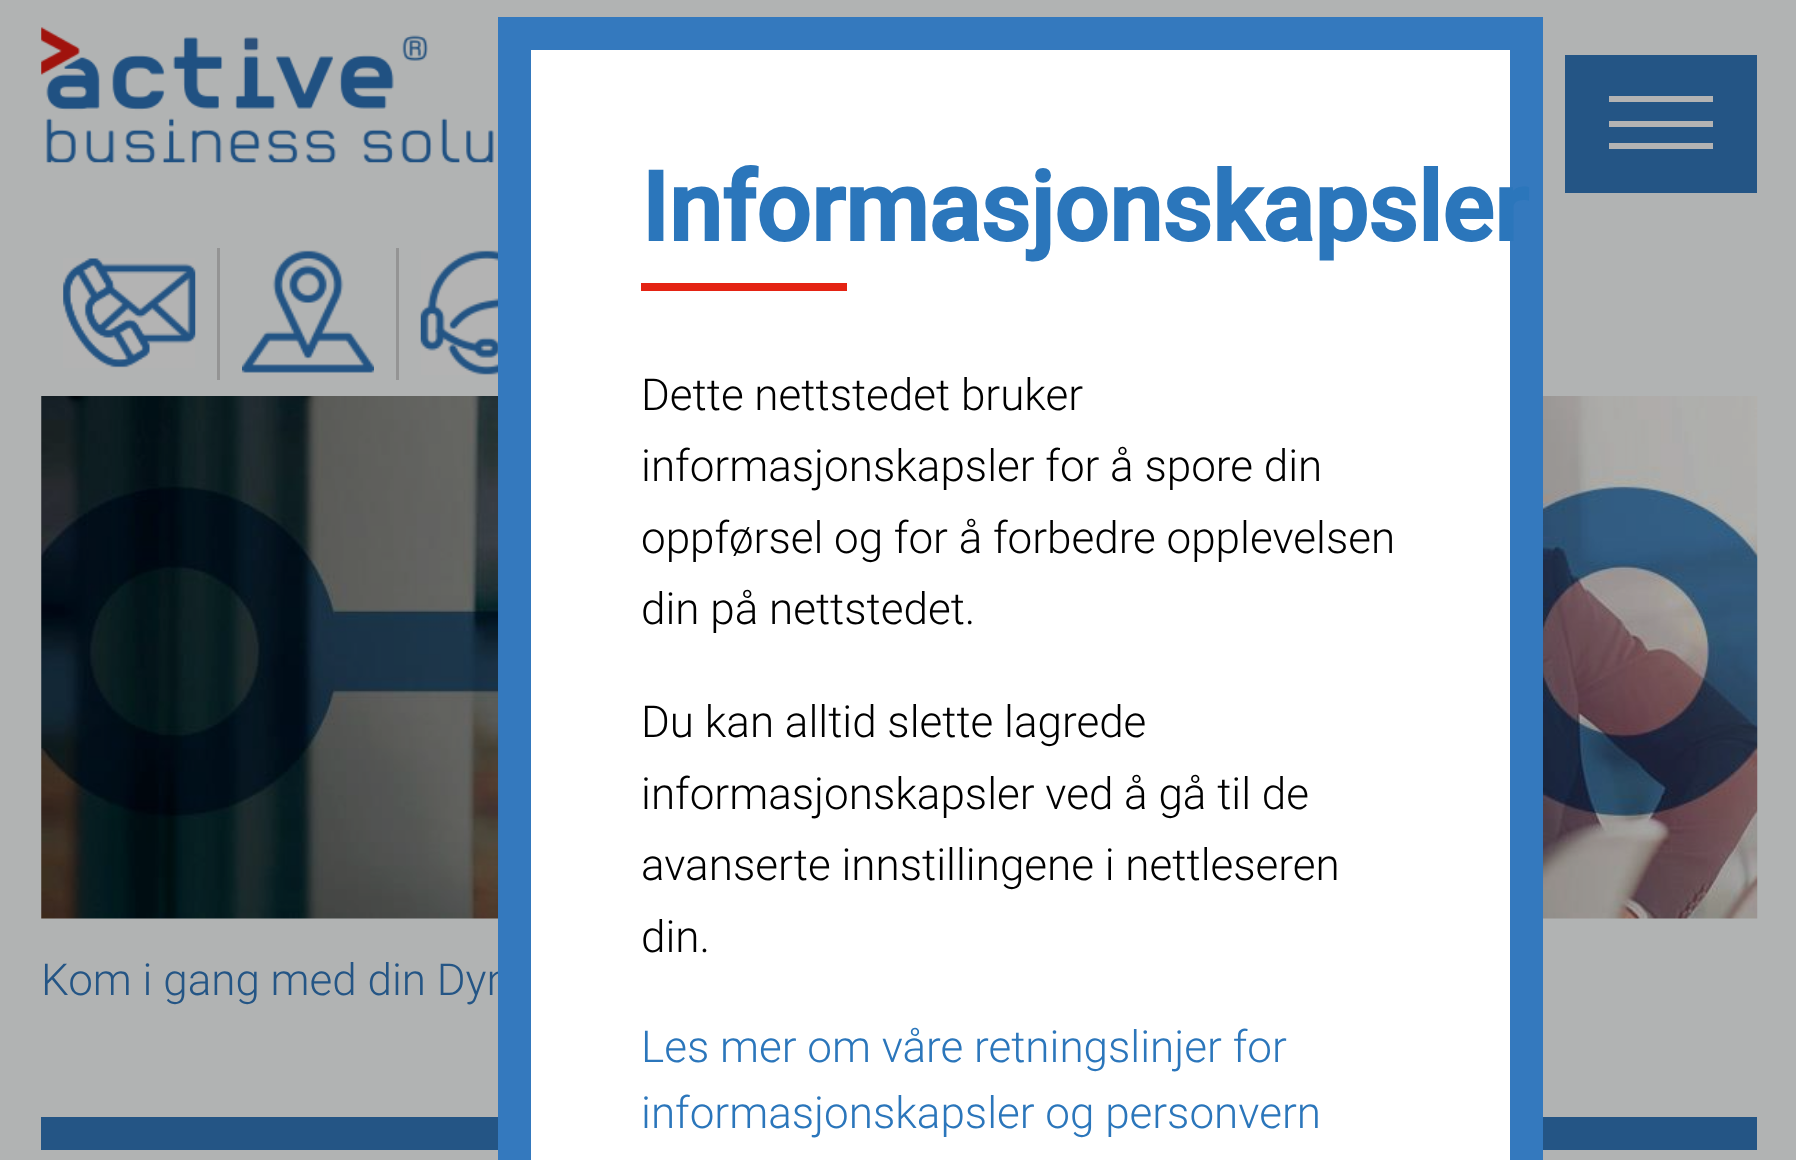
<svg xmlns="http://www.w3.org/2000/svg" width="1796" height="1160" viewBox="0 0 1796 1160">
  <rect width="100%" height="100%" fill="#b1b3b3"/>
  <image x="41" y="27" width="453" height="136" href="img/1.png"/>
  <path d="M1565 55h192v138H1565z" fill="#245585"/>
  <path d="M1609 121h104v6H1609z" fill="#b3b3b3"/>
  <path d="M1609 96h104v6H1609z" fill="#b3b3b3"/>
  <path d="M1609 143h104v6H1609z" fill="#b3b3b3"/>
  <path d="M217 248h3v132H217z" fill="#949494"/>
  <image x="63" y="258" width="133" height="110" href="img/2.png"/>
  <path d="M396 248h3v132H396z" fill="#949494"/>
  <image x="242" y="250" width="132" height="123" href="img/3.png"/>
  <image x="420" y="250" width="78" height="125" href="img/4.png"/>
  <image x="41" y="396" width="1717" height="523" href="img/5.png"/>
  <path d="M41 1117h1716v33H41z" fill="#245585"/>
  <text x="41" y="995" font-family="Roboto" font-size="44" font-weight="300" fill="#245585">Kom i gang med din Dyn</text>
  <path d="M514.5 33.5h1012v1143H514.5z" fill="#fff" stroke="#3479be" stroke-width="33"/>
  <text x="641" y="241" font-family="Roboto" font-size="96.25" font-weight="bold" fill="#2b76bb">Informasjonskapsler</text>
  <path d="M641 283h206v8H641z" fill="#e42313"/>
  <g font-family="Roboto" font-size="44" font-weight="300" fill="#000">
    <text x="641" y="410">Dette nettstedet bruker</text>
    <text x="641" y="481">informasjonskapsler for å spore din</text>
    <text x="641" y="553">oppførsel og for å forbedre opplevelsen</text>
    <text x="641" y="624">din på nettstedet.</text>
    <text x="641" y="737">Du kan alltid slette lagrede</text>
    <text x="641" y="809">informasjonskapsler ved å gå til de</text>
    <text x="641" y="880">avanserte innstillingene i nettleseren</text>
    <text x="641" y="952">din.</text>
  </g>
  <g font-family="Roboto" font-size="44" font-weight="300" fill="#2b76bb">
    <text x="641" y="1062">Les mer om våre retningslinjer for</text>
    <text x="641" y="1128">informasjonskapsler og personvern</text>
  </g>
</svg>
